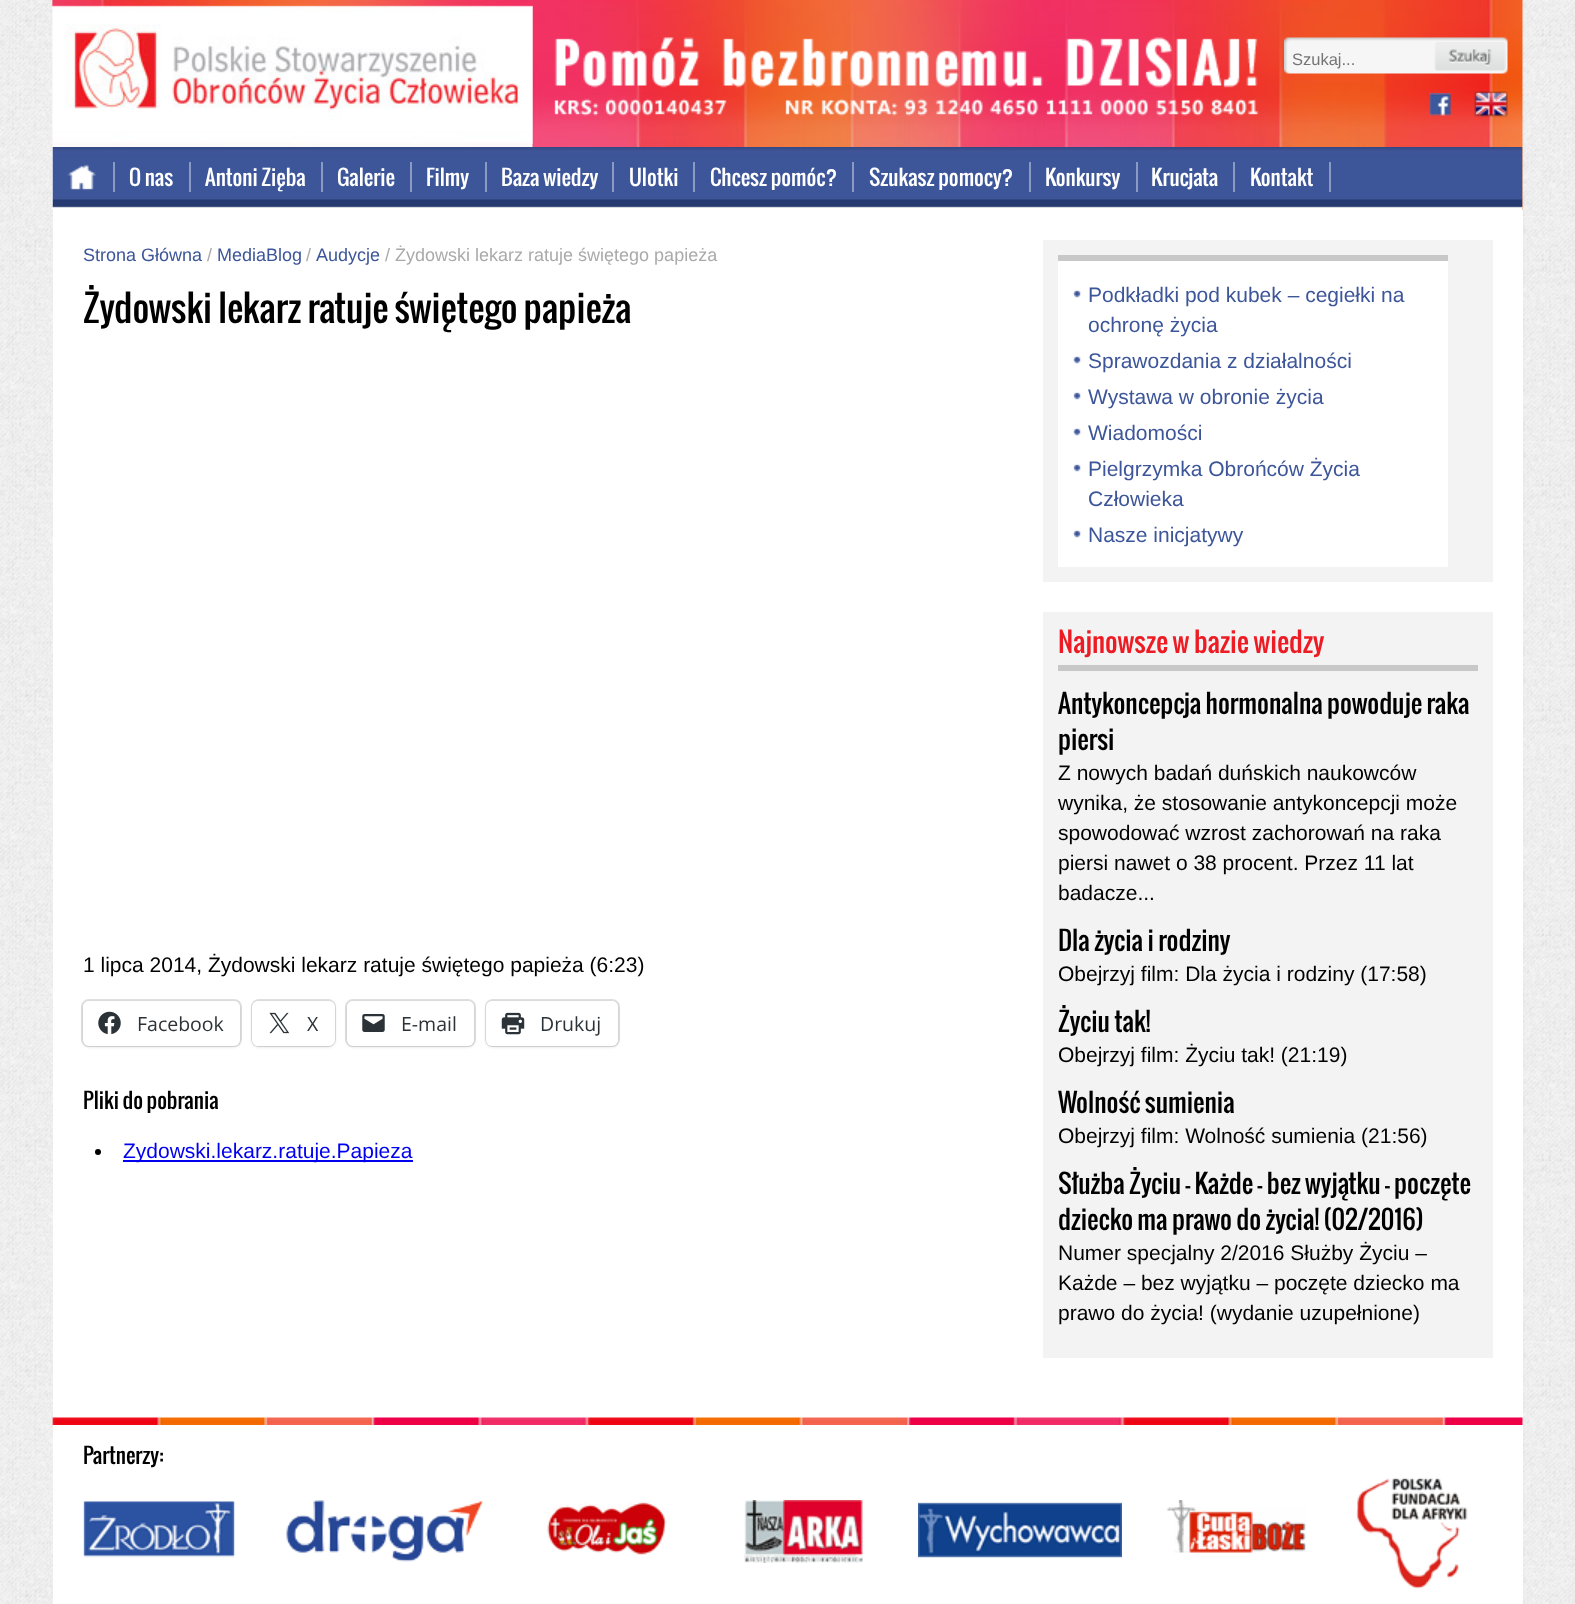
<svg xmlns="http://www.w3.org/2000/svg" width="1575" height="1604" viewBox="0 0 1575 1604">
  <rect width="100%" height="100%" fill="#fff"/>
  <image x="0" y="0" width="1575" height="1604" href="img/1.png"/>
  <image x="52" y="0" width="1471" height="210" href="img/2.png"/>
  <image x="52" y="0" width="481" height="144" href="img/3.png"/>
  <image x="554" y="37" width="705" height="79" href="img/4.png"/>
  <image x="1284" y="37" width="224" height="37" href="img/5.png"/>
  <image x="1434" y="42" width="72" height="29" href="img/6.png"/>
  <image x="1429" y="93" width="22" height="23" href="img/7.png"/>
  <image x="1474" y="91" width="34" height="27" href="img/8.png"/>
  <image x="52" y="147" width="1471" height="63" href="img/9.png"/>
  <image x="67" y="164" width="30" height="26" href="img/10.png"/>
  <path d="M113 162h2v30H113z" fill="#8b9ac2"/>
  <path d="M189 162h2v30H189z" fill="#8b9ac2"/>
  <path d="M321 162h2v30H321z" fill="#8b9ac2"/>
  <path d="M410 162h2v30H410z" fill="#8b9ac2"/>
  <path d="M485 162h2v30H485z" fill="#8b9ac2"/>
  <path d="M612 162h2v30H612z" fill="#8b9ac2"/>
  <path d="M693 162h2v30H693z" fill="#8b9ac2"/>
  <path d="M852 162h2v30H852z" fill="#8b9ac2"/>
  <path d="M1029 162h2v30H1029z" fill="#8b9ac2"/>
  <path d="M1136 162h2v30H1136z" fill="#8b9ac2"/>
  <path d="M1233 162h2v30H1233z" fill="#8b9ac2"/>
  <path d="M1329 162h2v30H1329z" fill="#8b9ac2"/>
  <path d="M53 210h1470v1208H53z" fill="#fff"/>
  <rect x="82" y="1000" width="159" height="46" rx="7" fill="none" stroke="#e0e0e0" stroke-width="2"/>
  <rect x="83" y="1002" width="157" height="45" rx="6" fill="#0000001f" filter="blur(1.5px)"/>
  <rect x="83" y="1001" width="157" height="45" rx="6" fill="#fff"/>
  <image x="98" y="1011" width="23" height="24" href="img/11.png"/>
  <rect x="252" y="1000" width="83" height="46" rx="7" fill="none" stroke="#e0e0e0" stroke-width="2"/>
  <rect x="252" y="1002" width="83" height="45" rx="6" fill="#0000001f" filter="blur(1.5px)"/>
  <rect x="252" y="1001" width="83" height="45" rx="6" fill="#fff"/>
  <image x="269" y="1012" width="21" height="22" href="img/12.png"/>
  <rect x="346" y="1000" width="129" height="46" rx="7" fill="none" stroke="#e0e0e0" stroke-width="2"/>
  <rect x="347" y="1002" width="127" height="45" rx="6" fill="#0000001f" filter="blur(1.5px)"/>
  <rect x="347" y="1001" width="127" height="45" rx="6" fill="#fff"/>
  <image x="362" y="1014" width="23" height="18" href="img/13.png"/>
  <rect x="486" y="1000" width="133" height="46" rx="7" fill="none" stroke="#e0e0e0" stroke-width="2"/>
  <rect x="486" y="1002" width="132" height="45" rx="6" fill="#0000001f" filter="blur(1.5px)"/>
  <rect x="486" y="1001" width="132" height="45" rx="6" fill="#fff"/>
  <image x="501" y="1012" width="24" height="23" href="img/14.png"/>
  <circle cx="98" cy="1152" r="3" fill="#000"/>
  <path d="M123 1160h290v2H123z" fill="#00e"/>
  <path d="M1043 240h450v342H1043z" fill="#f3f3f3"/>
  <path d="M1058 261h390v306H1058z" fill="#fff"/>
  <path d="M1058 255h390v6H1058z" fill="#c8c8c8"/>
  <image x="1073" y="290" width="8" height="8" href="img/15.png"/>
  <image x="1073" y="356" width="8" height="8" href="img/15.png"/>
  <image x="1073" y="392" width="8" height="8" href="img/15.png"/>
  <image x="1073" y="428" width="8" height="8" href="img/15.png"/>
  <image x="1073" y="464" width="8" height="8" href="img/15.png"/>
  <image x="1073" y="530" width="8" height="8" href="img/15.png"/>
  <path d="M1043 612h450v746H1043z" fill="#f3f3f3"/>
  <path d="M1058 665h420v6H1058z" fill="#c8c8c8"/>
  <image x="52" y="1417" width="1471" height="8" href="img/16.png"/>
  <path d="M53 1425h1470v179H53z" fill="#fff"/>
  <image x="83" y="1501" width="152" height="57" href="img/17.png"/>
  <image x="286" y="1500" width="198" height="62" href="img/18.png"/>
  <image x="547" y="1502" width="120" height="53" href="img/19.png"/>
  <image x="744" y="1500" width="119" height="63" href="img/20.png"/>
  <image x="918" y="1502" width="204" height="56" href="img/21.png"/>
  <image x="1166" y="1500" width="141" height="53" href="img/22.png"/>
  <image x="1356" y="1477" width="112" height="112" href="img/23.png"/>
  <text x="1292" y="65" font-family="Liberation Sans" font-size="16.5" fill="#757575">Szukaj...</text>
  <g font-family="oswald" font-size="21" fill="#fff">
    <text x="129" y="186">O nas</text>
    <text x="205" y="186">Antoni Zięba</text>
    <text x="337" y="186">Galerie</text>
    <text x="426" y="186">Filmy</text>
    <text x="501" y="186">Baza wiedzy</text>
    <text x="629" y="186">Ulotki</text>
    <text x="710" y="186">Chcesz pomóc?</text>
    <text x="869" y="186">Szukasz pomocy?</text>
    <text x="1045" y="186">Konkursy</text>
    <text x="1151" y="186">Krucjata</text>
    <text x="1250" y="186">Kontakt</text>
  </g>
  <text x="83" y="261" font-family="Liberation Sans" font-size="18" fill="#3d5699">Strona Główna</text>
  <text x="207" y="261" font-family="Liberation Sans" font-size="18" fill="#aaa">/</text>
  <text x="217" y="261" font-family="Liberation Sans" font-size="18" fill="#3d5699">MediaBlog</text>
  <text x="306" y="261" font-family="Liberation Sans" font-size="18" fill="#aaa">/</text>
  <text x="316" y="261" font-family="Liberation Sans" font-size="18" fill="#3d5699">Audycje</text>
  <text x="385" y="261" font-family="Liberation Sans" font-size="18" fill="#aaa">/ Żydowski lekarz ratuje świętego papieża</text>
  <text x="83" y="323" font-family="oswald" font-size="36" fill="#000">Żydowski lekarz ratuje świętego papieża</text>
  <text x="83" y="972" font-family="Liberation Sans" font-size="21" fill="#000">1 lipca 2014, Żydowski lekarz ratuje świętego papieża (6:23)</text>
  <g font-family="Open Sans" font-size="19.5" fill="#2c3338">
    <text x="137" y="1031">Facebook</text>
    <text x="307" y="1031">X</text>
    <text x="401" y="1031">E-mail</text>
    <text x="540" y="1031">Drukuj</text>
  </g>
  <text x="83" y="1109" font-family="oswald" font-size="21" fill="#000">Pliki do pobrania</text>
  <text x="123" y="1158" font-family="Liberation Sans" font-size="21" fill="#00e">Zydowski.lekarz.ratuje.Papieza</text>
  <g font-family="Liberation Sans" font-size="21" fill="#3d5699">
    <text x="1088" y="302">Podkładki pod kubek – cegiełki na</text>
    <text x="1088" y="332">ochronę życia</text>
    <text x="1088" y="368">Sprawozdania z działalności</text>
    <text x="1088" y="404">Wystawa w obronie życia</text>
    <text x="1088" y="440">Wiadomości</text>
    <text x="1088" y="476">Pielgrzymka Obrońców Życia</text>
    <text x="1088" y="506">Człowieka</text>
    <text x="1088" y="542">Nasze inicjatywy</text>
  </g>
  <text x="1058" y="653" font-family="oswald" font-size="27" fill="#ed1c24">Najnowsze w bazie wiedzy</text>
  <g font-family="oswald" font-size="25.5" fill="#000">
    <text x="1058" y="714">Antykoncepcja hormonalna powoduje raka</text>
    <text x="1058" y="750">piersi</text>
  </g>
  <g font-family="Liberation Sans" font-size="21" fill="#000">
    <text x="1058" y="780">Z nowych badań duńskich naukowców</text>
    <text x="1058" y="810">wynika, że stosowanie antykoncepcji może</text>
    <text x="1058" y="840">spowodować wzrost zachorowań na raka</text>
    <text x="1058" y="870">piersi nawet o 38 procent. Przez 11 lat</text>
    <text x="1058" y="900">badacze...</text>
  </g>
  <text x="1058" y="951" font-family="oswald" font-size="25.5" fill="#000">Dla życia i rodziny</text>
  <text x="1058" y="981" font-family="Liberation Sans" font-size="21" fill="#000">Obejrzyj film: Dla życia i rodziny (17:58)</text>
  <text x="1058" y="1032" font-family="oswald" font-size="25.5" fill="#000">Życiu tak!</text>
  <text x="1058" y="1062" font-family="Liberation Sans" font-size="21" fill="#000">Obejrzyj film: Życiu tak! (21:19)</text>
  <text x="1058" y="1113" font-family="oswald" font-size="25.5" fill="#000">Wolność sumienia</text>
  <text x="1058" y="1143" font-family="Liberation Sans" font-size="21" fill="#000">Obejrzyj film: Wolność sumienia (21:56)</text>
  <g font-family="oswald" font-size="25.5" fill="#000">
    <text x="1058" y="1194">Służba Życiu – Każde – bez wyjątku – poczęte</text>
    <text x="1058" y="1230">dziecko ma prawo do życia! (02/2016)</text>
  </g>
  <g font-family="Liberation Sans" font-size="21" fill="#000">
    <text x="1058" y="1260">Numer specjalny 2/2016 Służby Życiu –</text>
    <text x="1058" y="1290">Każde – bez wyjątku – poczęte dziecko ma</text>
    <text x="1058" y="1320">prawo do życia! (wydanie uzupełnione)</text>
  </g>
  <text x="83" y="1464" font-family="oswald" font-size="21" fill="#000">Partnerzy:</text>
</svg>
